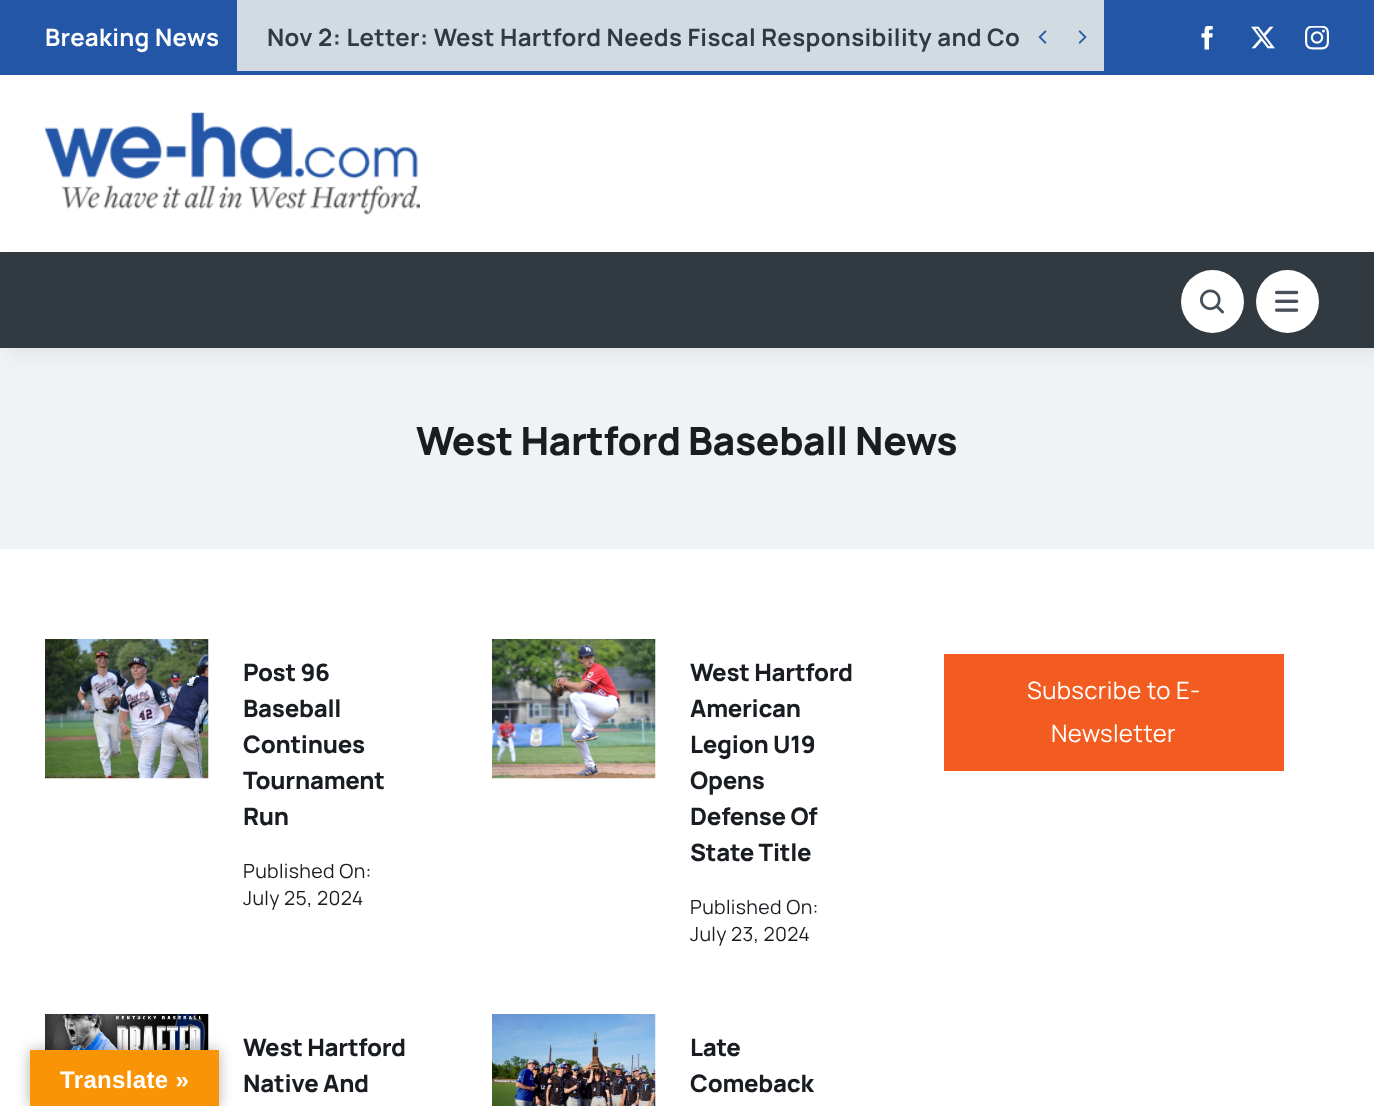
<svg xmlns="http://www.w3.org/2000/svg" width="1374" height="1106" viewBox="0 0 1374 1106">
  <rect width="100%" height="100%" fill="#fff"/>
  <path d="M0 0h1374v75H0z" fill="#2456a7"/>
  <path d="M237 0h867v71H237z" fill="#d2dbe2"/>
  <image x="1038" y="30" width="9" height="14" href="img/1.png"/>
  <image x="1078" y="30" width="9" height="14" href="img/2.png"/>
  <image x="1201" y="26" width="12" height="24" href="img/3.png"/>
  <image x="1251" y="26" width="24" height="23" href="img/4.png"/>
  <image x="1305" y="26" width="24" height="24" href="img/5.png"/>
  <image x="45" y="112" width="375" height="103" href="img/6.png"/>
  <path d="M0 348h1374v201H0z" fill="#eff3f5"/>
  <path d="M8 260h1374v96H8z" fill="#0203030d" filter="blur(7.5px)"/>
  <path d="M0 252h1374v96H0z" fill="#323a41"/>
  <circle cx="1212.5" cy="301.5" r="31.5" fill="#fff"/>
  <image x="1200" y="289" width="24" height="25" href="img/7.png"/>
  <circle cx="1287.5" cy="301.5" r="31.5" fill="#fff"/>
  <image x="1275" y="290" width="24" height="22" href="img/8.png"/>
  <image x="45" y="639" width="164" height="140" href="img/9.png"/>
  <image x="492" y="639" width="164" height="140" href="img/10.png"/>
  <image x="45" y="1014" width="164" height="36" href="img/11.png"/>
  <image x="492" y="1014" width="164" height="92" href="img/12.png"/>
  <path d="M944 654h340v117H944z" fill="#f25c21"/>
  <path d="M30 1050h189v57H30z" fill="#0000004d" filter="blur(7px)"/>
  <path d="M30 1050h189v56H30z" fill="#f89406"/>
  <text x="45" y="46" font-family="Manrope" font-size="24" font-weight="bold" letter-spacing="0.35" fill="#fff">Breaking News</text>
  <text x="267" y="46" font-family="Manrope" font-size="24" font-weight="bold" letter-spacing="0.35" fill="#323a41">Nov 2: Letter: West Hartford Needs Fiscal Responsibility and Co</text>
  <text x="416" y="455" font-family="Manrope" font-size="39" font-weight="800" letter-spacing="-0.4" fill="#191d21">West Hartford Baseball News</text>
  <g font-family="Manrope" font-size="24" font-weight="800" letter-spacing="-0.25" fill="#191d21">
    <text x="243" y="681">Post 96</text>
    <text x="243" y="717">Baseball</text>
    <text x="243" y="753">Continues</text>
    <text x="243" y="789">Tournament</text>
    <text x="243" y="825">Run</text>
  </g>
  <g font-family="Manrope" font-size="19.5" letter-spacing="0.35" fill="#191d21">
    <text x="243" y="878">Published On:</text>
    <text x="243" y="905">July 25, 2024</text>
  </g>
  <g font-family="Manrope" font-size="24" font-weight="800" letter-spacing="-0.25" fill="#191d21">
    <text x="690" y="681">West Hartford</text>
    <text x="690" y="717">American</text>
    <text x="690" y="753">Legion U19</text>
    <text x="690" y="789">Opens</text>
    <text x="690" y="825">Defense Of</text>
    <text x="690" y="861">State Title</text>
  </g>
  <g font-family="Manrope" font-size="19.5" letter-spacing="0.35" fill="#191d21">
    <text x="690" y="914">Published On:</text>
    <text x="690" y="941">July 23, 2024</text>
  </g>
  <g font-family="Manrope" font-size="24" font-weight="800" letter-spacing="-0.25" fill="#191d21">
    <text x="243" y="1056">West Hartford</text>
    <text x="243" y="1092">Native And</text>
    <text x="690" y="1056">Late</text>
    <text x="690" y="1092">Comeback</text>
  </g>
  <g font-family="Manrope" font-size="24" letter-spacing="0.35" fill="#fff">
    <text x="1027" y="699">Subscribe to E-</text>
    <text x="1051" y="742">Newsletter</text>
  </g>
  <text x="60" y="1088" font-family="Liberation Sans" font-size="24" font-weight="bold" letter-spacing="0.35" fill="#fff">Translate »</text>
</svg>
